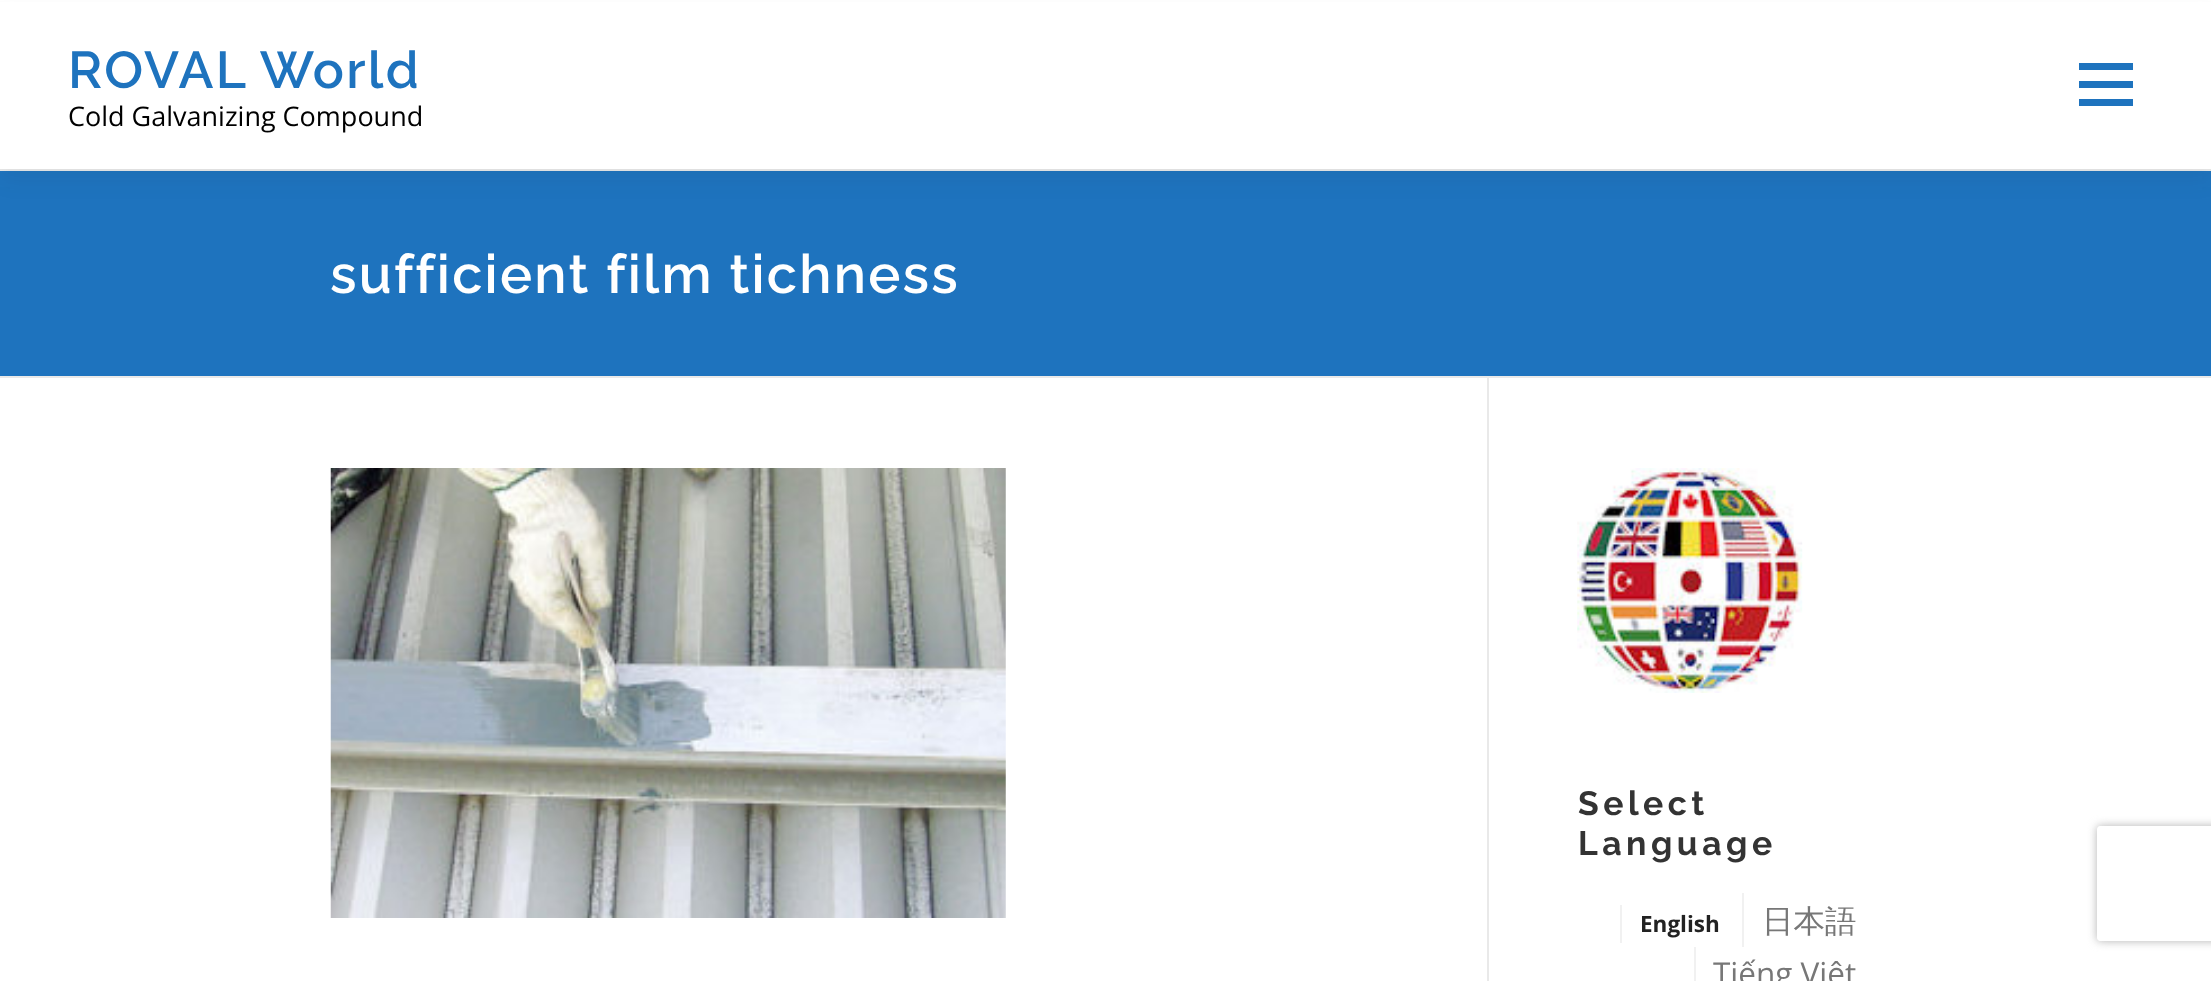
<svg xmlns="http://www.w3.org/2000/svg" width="2211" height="981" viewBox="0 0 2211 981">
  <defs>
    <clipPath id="clip1"><path d="M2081 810H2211V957H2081ZM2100 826H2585C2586.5 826 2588 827.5 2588 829V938C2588 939.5 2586.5 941 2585 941H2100C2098.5 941 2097 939.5 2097 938V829C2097 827.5 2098.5 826 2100 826Z" clip-rule="evenodd"/></clipPath>
  </defs>
  <rect width="100%" height="100%" fill="#fff"/>
  <path d="M0 169h2211v2H0z" fill="#e9e9e9"/>
  <path d="M0 171h2211v205H0z" fill="#1e73be"/>
  <path d="M0 11h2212v169H0z" fill="#3232320f" filter="blur(11px)"/>
  <path d="M0 2h2211v167H0z" fill="#fff"/>
  <path d="M2079 81h54v7H2079z" fill="#1e73be"/>
  <path d="M2079 63h54v7H2079z" fill="#1e73be"/>
  <path d="M2079 99h54v7H2079z" fill="#1e73be"/>
  <path d="M0 376h2211v2H0z" fill="#e9e9e9"/>
  <path d="M1487 378h2v603H1487z" fill="#e9e9e9"/>
  <image x="330" y="468" width="676" height="450" href="img/1.png"/>
  <image x="1577" y="468" width="226" height="225" href="img/2.png"/>
  <path d="M1620 905h2v38H1620z" fill="#f1f1f1"/>
  <path d="M1742 893h2v54H1742z" fill="#f1f1f1"/>
  <path d="M1694 947h2v34H1694z" fill="#f1f1f1"/>
  <g clip-path="url(#clip1)">
    <rect x="2097" y="826" width="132" height="115" rx="3" fill="#b3b3b3" filter="blur(5px)"/>
  </g>
  <text x="68" y="88" font-family="Raleway" font-size="51.75" font-weight="600" letter-spacing="2.25" fill="#1e73be">ROVAL World</text>
  <text x="68" y="126" font-family="Open Sans" font-size="27" fill="#000">Cold Galvanizing Compound</text>
  <text x="330" y="293" font-family="Raleway" font-size="54" font-weight="600" letter-spacing="2.25" fill="#fff">sufficient film tichness</text>
  <g font-family="Raleway" font-size="33.75" font-weight="bold" letter-spacing="4.5" fill="#333">
    <text x="1578" y="815">Select</text>
    <text x="1578" y="855">Language</text>
  </g>
  <text x="1640" y="932" font-family="Open Sans" font-size="22.5" font-weight="bold" fill="#222">English</text>
  <text x="1762" y="932" font-family="WenQuanYi Zen Hei" font-size="31.5" font-weight="500" fill="#777">日本語</text>
  <text x="1713" y="985" font-family="Open Sans" font-size="31.5" fill="#777">Tiếng Việt</text>
</svg>
